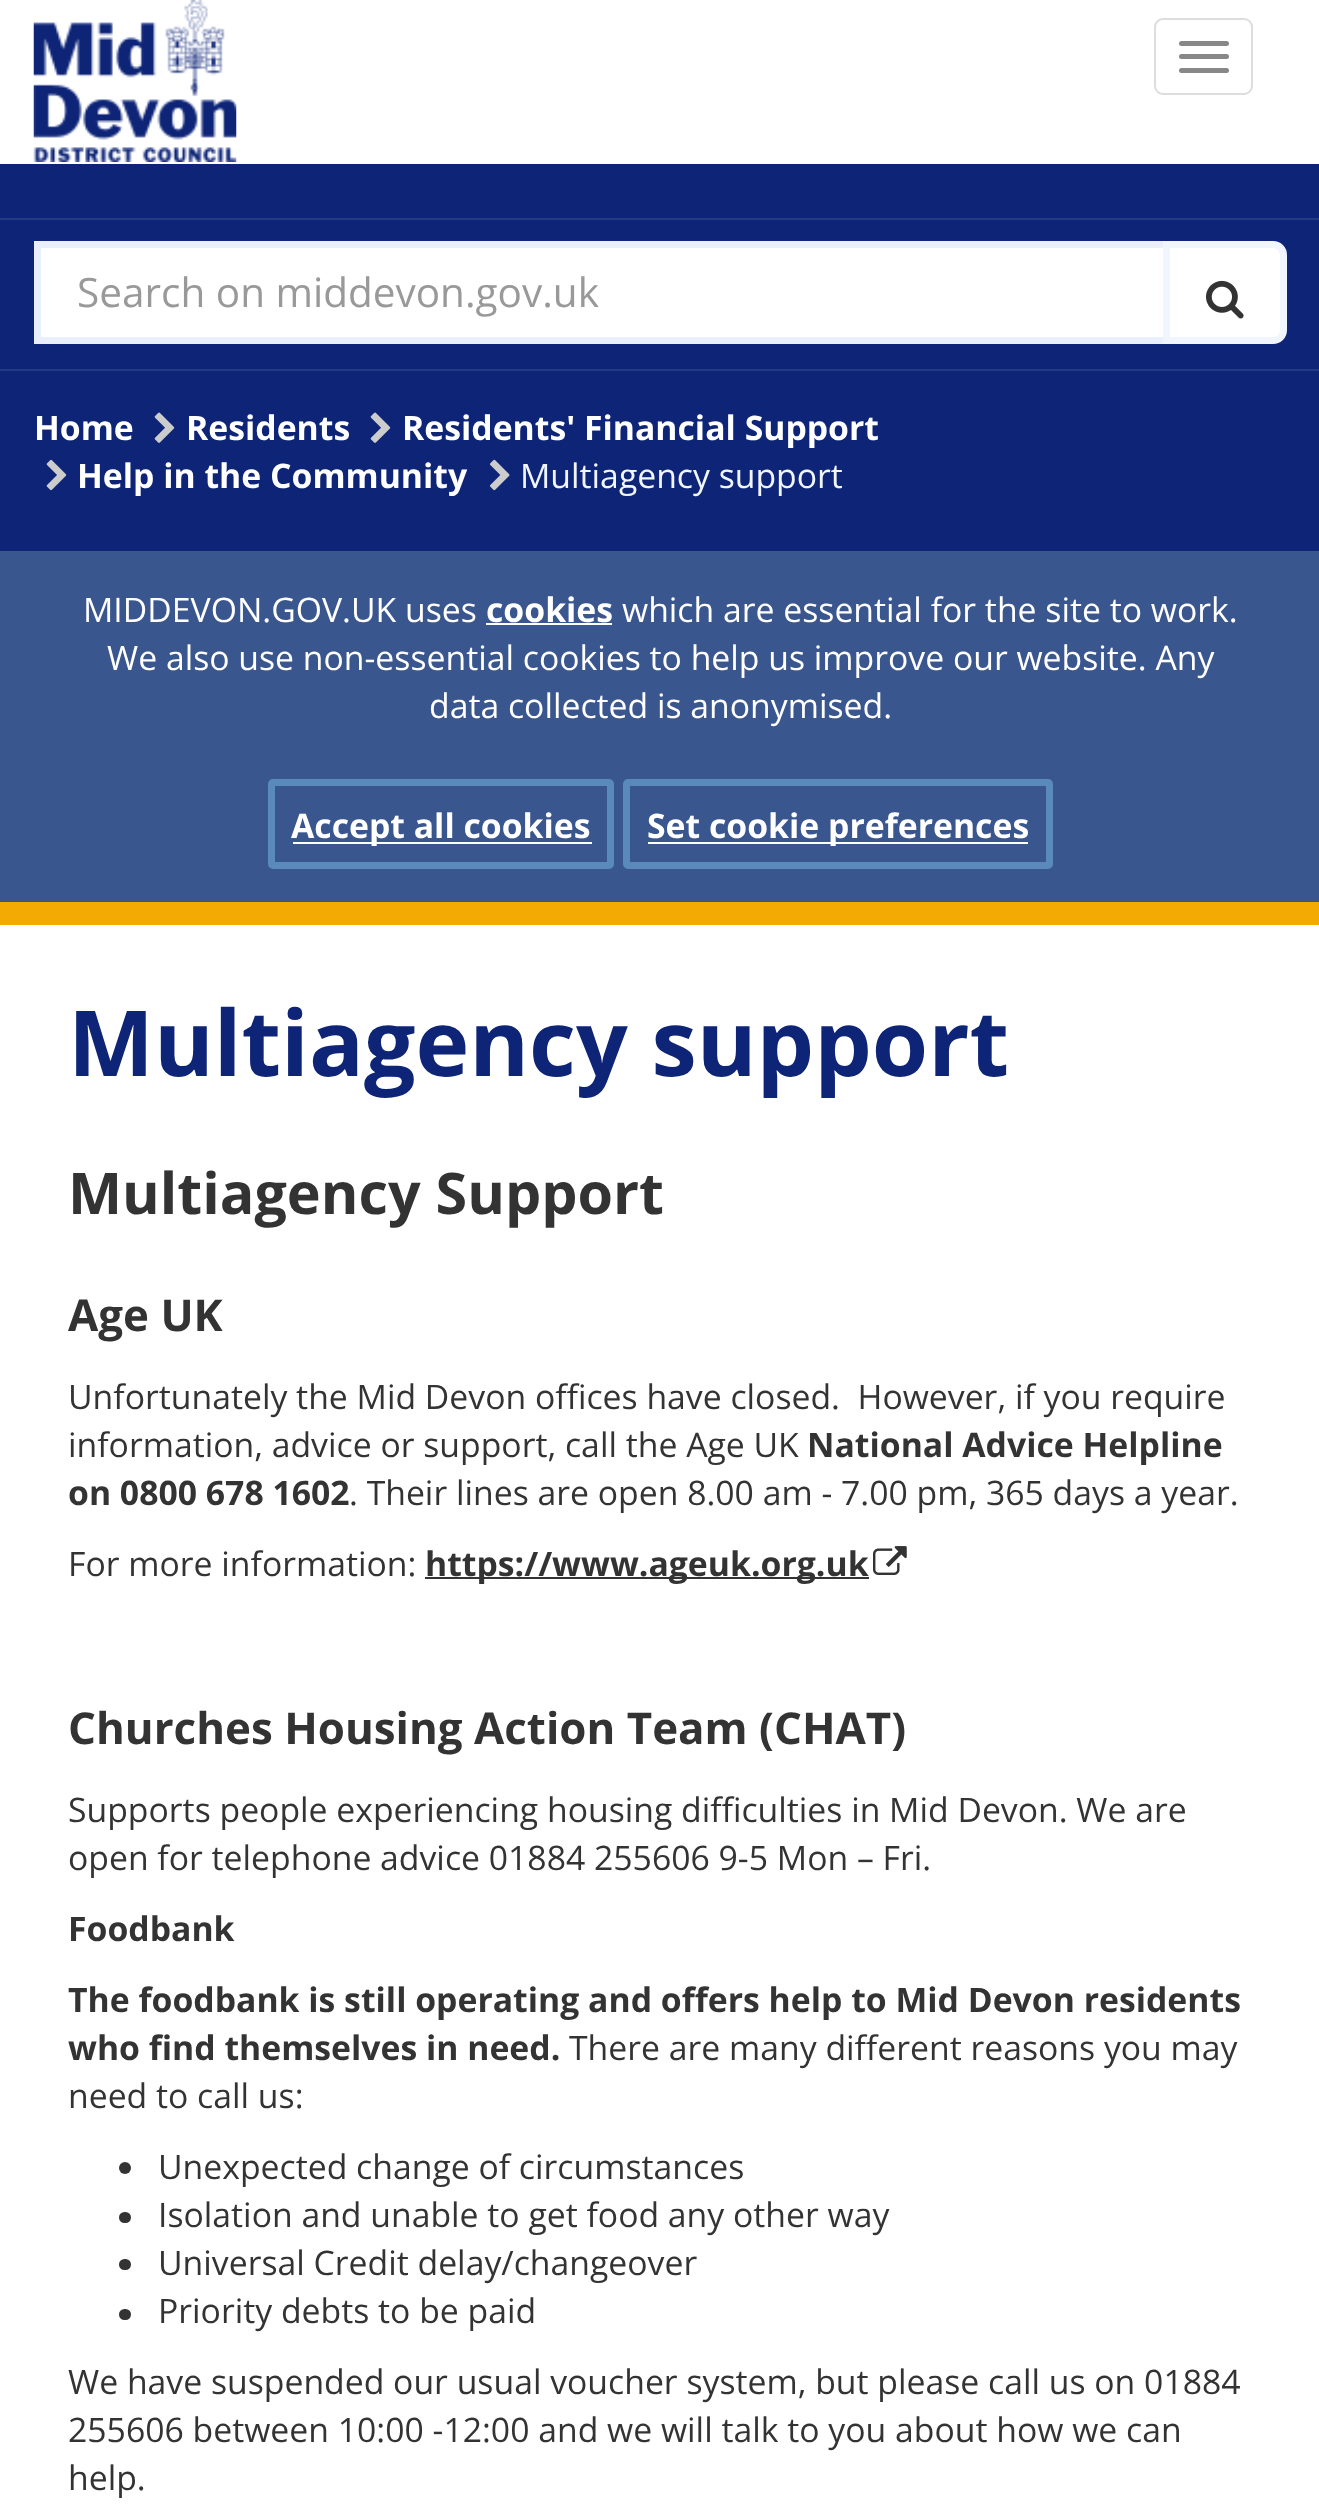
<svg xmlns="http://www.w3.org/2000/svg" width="1319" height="2514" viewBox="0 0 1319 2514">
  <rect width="100%" height="100%" fill="#fff"/>
  <image x="33" y="0" width="204" height="162" href="img/1.png"/>
  <rect x="1155" y="19" width="97" height="75" rx="8" fill="none" stroke="#ddd" stroke-width="2"/>
  <rect x="1179" y="41" width="50" height="5" rx="2.5" fill="#888"/>
  <rect x="1179" y="54" width="50" height="5" rx="2.5" fill="#888"/>
  <rect x="1179" y="68" width="50" height="5" rx="2.5" fill="#888"/>
  <path d="M0 164h1319v387H0z" fill="#0d2477"/>
  <path d="M0 369V371H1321V218V369Z" fill="#253a85"/>
  <path d="M0 218h1319v2H0z" fill="#253a85"/>
  <path d="M37.5 244.5h1129v96H37.5z" fill="#fff" stroke="#e9effc" stroke-width="7"/>
  <path d="M1166.5 244.5H1273C1279 244.5 1283.5 249 1283.5 255V330C1283.5 336 1279 340.5 1273 340.5H1166.5Z" fill="#fff" stroke="#f1f5fd" stroke-width="7"/>
  <image x="1206" y="280" width="38" height="39" href="img/2.png"/>
  <image x="154" y="412" width="21" height="31" href="img/3.png"/>
  <image x="370" y="412" width="21" height="31" href="img/3.png"/>
  <image x="46" y="459" width="21" height="32" href="img/4.png"/>
  <image x="490" y="459" width="20" height="32" href="img/5.png"/>
  <path d="M0 551h1319v351H0z" fill="#3a568e"/>
  <path d="M486 623h126v2H486z" fill="#fff"/>
  <rect x="271.5" y="782.5" width="339" height="83" rx="1.5" fill="none" stroke="#598abb" stroke-width="7"/>
  <path d="M293 842h299v2H293z" fill="#fff"/>
  <rect x="626.5" y="782.5" width="423" height="83" rx="1.5" fill="none" stroke="#598abb" stroke-width="7"/>
  <path d="M648 842h380v2H648z" fill="#fff"/>
  <path d="M0 902h1319v23H0z" fill="#f3aa03"/>
  <path d="M425 1577h444v2H425z" fill="#333"/>
  <image x="873" y="1546" width="34" height="29" href="img/6.png"/>
  <circle cx="125" cy="2168" r="6" fill="#333"/>
  <rect x="119" y="2212" width="12" height="11" rx="5.5" fill="#333"/>
  <rect x="119" y="2259" width="12" height="11" rx="5.5" fill="#333"/>
  <rect x="119" y="2309" width="12" height="11" rx="5.5" fill="#333"/>
  <text x="77" y="307" font-family="Open Sans" font-size="40.5" fill="#999">Search on middevon.gov.uk</text>
  <g font-family="Open Sans" font-size="33.75" font-weight="bold" fill="#fff">
    <text x="34" y="440">Home</text>
    <text x="186" y="440">Residents</text>
    <text x="402" y="440">Residents' Financial Support</text>
    <text x="77" y="488">Help in the Community</text>
  </g>
  <text x="520" y="488" font-family="Open Sans" font-size="33.75" fill="#f1f5fd">Multiagency support</text>
  <text x="83" y="622" font-family="Open Sans" font-size="33.75" fill="#fff">MIDDEVON.GOV.UK uses</text>
  <text x="486" y="622" font-family="Open Sans" font-size="33.75" font-weight="bold" fill="#fff">cookies</text>
  <g font-family="Open Sans" font-size="33.75" fill="#fff">
    <text x="622" y="622">which are essential for the site to work.</text>
    <text x="107" y="670">We also use non-essential cookies to help us improve our website. Any</text>
    <text x="429" y="718">data collected is anonymised.</text>
  </g>
  <g font-family="Open Sans" font-size="33.75" font-weight="bold" fill="#fff">
    <text x="291" y="838">Accept all cookies</text>
    <text x="647" y="838">Set cookie preferences</text>
  </g>
  <text x="68" y="1076" font-family="Open Sans" font-size="91.1" font-weight="bold" fill="#0d2477">Multiagency support</text>
  <text x="68" y="1214" font-family="Open Sans" font-size="57.4" font-weight="bold" fill="#333">Multiagency Support</text>
  <text x="68" y="1331" font-family="Open Sans" font-size="43.9" font-weight="bold" fill="#333">Age UK</text>
  <g font-family="Open Sans" font-size="33.75" fill="#333">
    <text x="68" y="1409" xml:space="preserve">Unfortunately the Mid Devon offices have closed.  However, if you require</text>
    <text x="68" y="1457">information, advice or support, call the Age UK</text>
  </g>
  <g font-family="Open Sans" font-size="33.75" font-weight="bold" fill="#333">
    <text x="807" y="1457">National Advice Helpline</text>
    <text x="68" y="1505">on 0800 678 1602</text>
  </g>
  <g font-family="Open Sans" font-size="33.75" fill="#333">
    <text x="349" y="1505">. Their lines are open 8.00 am - 7.00 pm, 365 days a year.</text>
    <text x="68" y="1576">For more information:</text>
  </g>
  <text x="425" y="1576" font-family="Open Sans" font-size="33.75" font-weight="bold" fill="#333">https://www.ageuk.org.uk</text>
  <text x="68" y="1744" font-family="Open Sans" font-size="43.9" font-weight="bold" fill="#333">Churches Housing Action Team (CHAT)</text>
  <g font-family="Open Sans" font-size="33.75" fill="#333">
    <text x="68" y="1822">Supports people experiencing housing difficulties in Mid Devon. We are</text>
    <text x="68" y="1870">open for telephone advice 01884 255606 9-5 Mon – Fri.</text>
  </g>
  <g font-family="Open Sans" font-size="33.75" font-weight="bold" fill="#333">
    <text x="68" y="1941">Foodbank</text>
    <text x="68" y="2012">The foodbank is still operating and offers help to Mid Devon residents</text>
    <text x="68" y="2060">who find themselves in need.</text>
  </g>
  <g font-family="Open Sans" font-size="33.75" fill="#333">
    <text x="569" y="2060">There are many different reasons you may</text>
    <text x="68" y="2108">need to call us:</text>
    <text x="158" y="2179">Unexpected change of circumstances</text>
    <text x="158" y="2227">Isolation and unable to get food any other way</text>
    <text x="158" y="2275">Universal Credit delay/changeover</text>
    <text x="158" y="2323">Priority debts to be paid</text>
    <text x="68" y="2394">We have suspended our usual voucher system, but please call us on 01884</text>
    <text x="68" y="2442">255606 between 10:00 -12:00 and we will talk to you about how we can</text>
    <text x="68" y="2490">help.</text>
  </g>
</svg>
